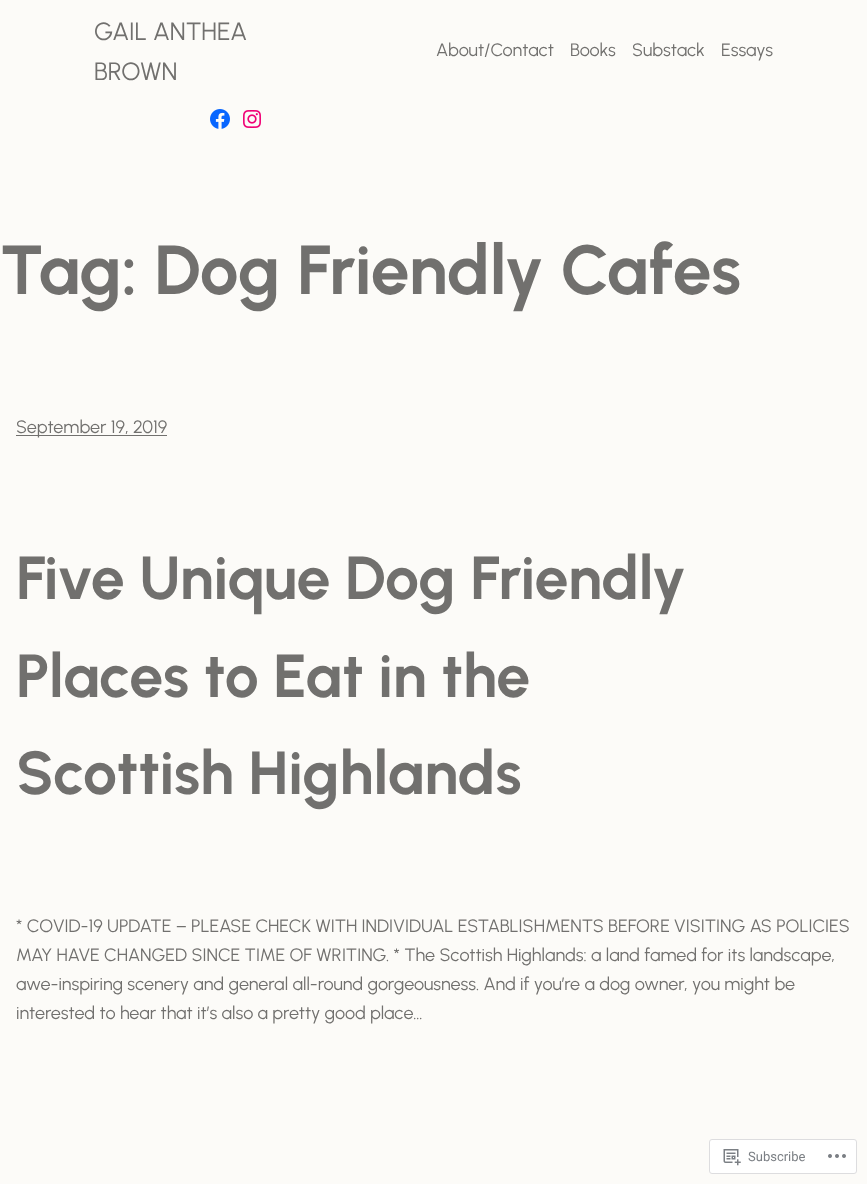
<svg xmlns="http://www.w3.org/2000/svg" width="867" height="1184" viewBox="0 0 867 1184">
  <rect width="100%" height="100%" fill="#fcfbf8"/>
  <image x="210" y="109" width="20" height="20" href="img/1.png"/>
  <image x="243" y="110" width="18" height="18" href="img/2.png"/>
  <path d="M16 435h151v1H16z" fill="#71706e"/>
  <rect x="709.5" y="1139.5" width="147" height="34" rx="2.5" fill="#fff" stroke="#dddddf"/>
  <image x="723" y="1149" width="18" height="17" href="img/3.png"/>
  <image x="828" y="1154" width="18" height="4" href="img/4.png"/>
  <g font-family="Urbanist" font-size="25" fill="#71706e">
    <text x="94" y="40">GAIL ANTHEA</text>
    <text x="94" y="80">BROWN</text>
  </g>
  <g font-family="Urbanist" font-size="18" fill="#71706e">
    <text x="436" y="56">About/Contact</text>
    <text x="570" y="56">Books</text>
    <text x="632" y="56">Substack</text>
    <text x="721" y="56">Essays</text>
  </g>
  <text x="0" y="294" font-family="Urbanist" font-size="69.4" font-weight="bold" fill="#71706e">Tag: Dog Friendly Cafes</text>
  <text x="16" y="433" font-family="Urbanist" font-size="18" fill="#71706e">September 19, 2019</text>
  <g font-family="Urbanist" font-size="60.75" font-weight="bold" fill="#71706e">
    <text x="16" y="599">Five Unique Dog Friendly</text>
    <text x="16" y="697">Places to Eat in the</text>
    <text x="16" y="794">Scottish Highlands</text>
  </g>
  <g font-family="Urbanist" font-size="18" fill="#71706e">
    <text x="16" y="932">* COVID-19 UPDATE – PLEASE CHECK WITH INDIVIDUAL ESTABLISHMENTS BEFORE VISITING AS POLICIES</text>
    <text x="16" y="961">MAY HAVE CHANGED SINCE TIME OF WRITING. * The Scottish Highlands: a land famed for its landscape,</text>
    <text x="16" y="990">awe-inspiring scenery and general all-round gorgeousness. And if you’re a dog owner, you might be</text>
    <text x="16" y="1019">interested to hear that it’s also a pretty good place…</text>
  </g>
  <text x="748" y="1161" font-family="Roboto" font-size="13" fill="#7b7f84">Subscribe</text>
</svg>
